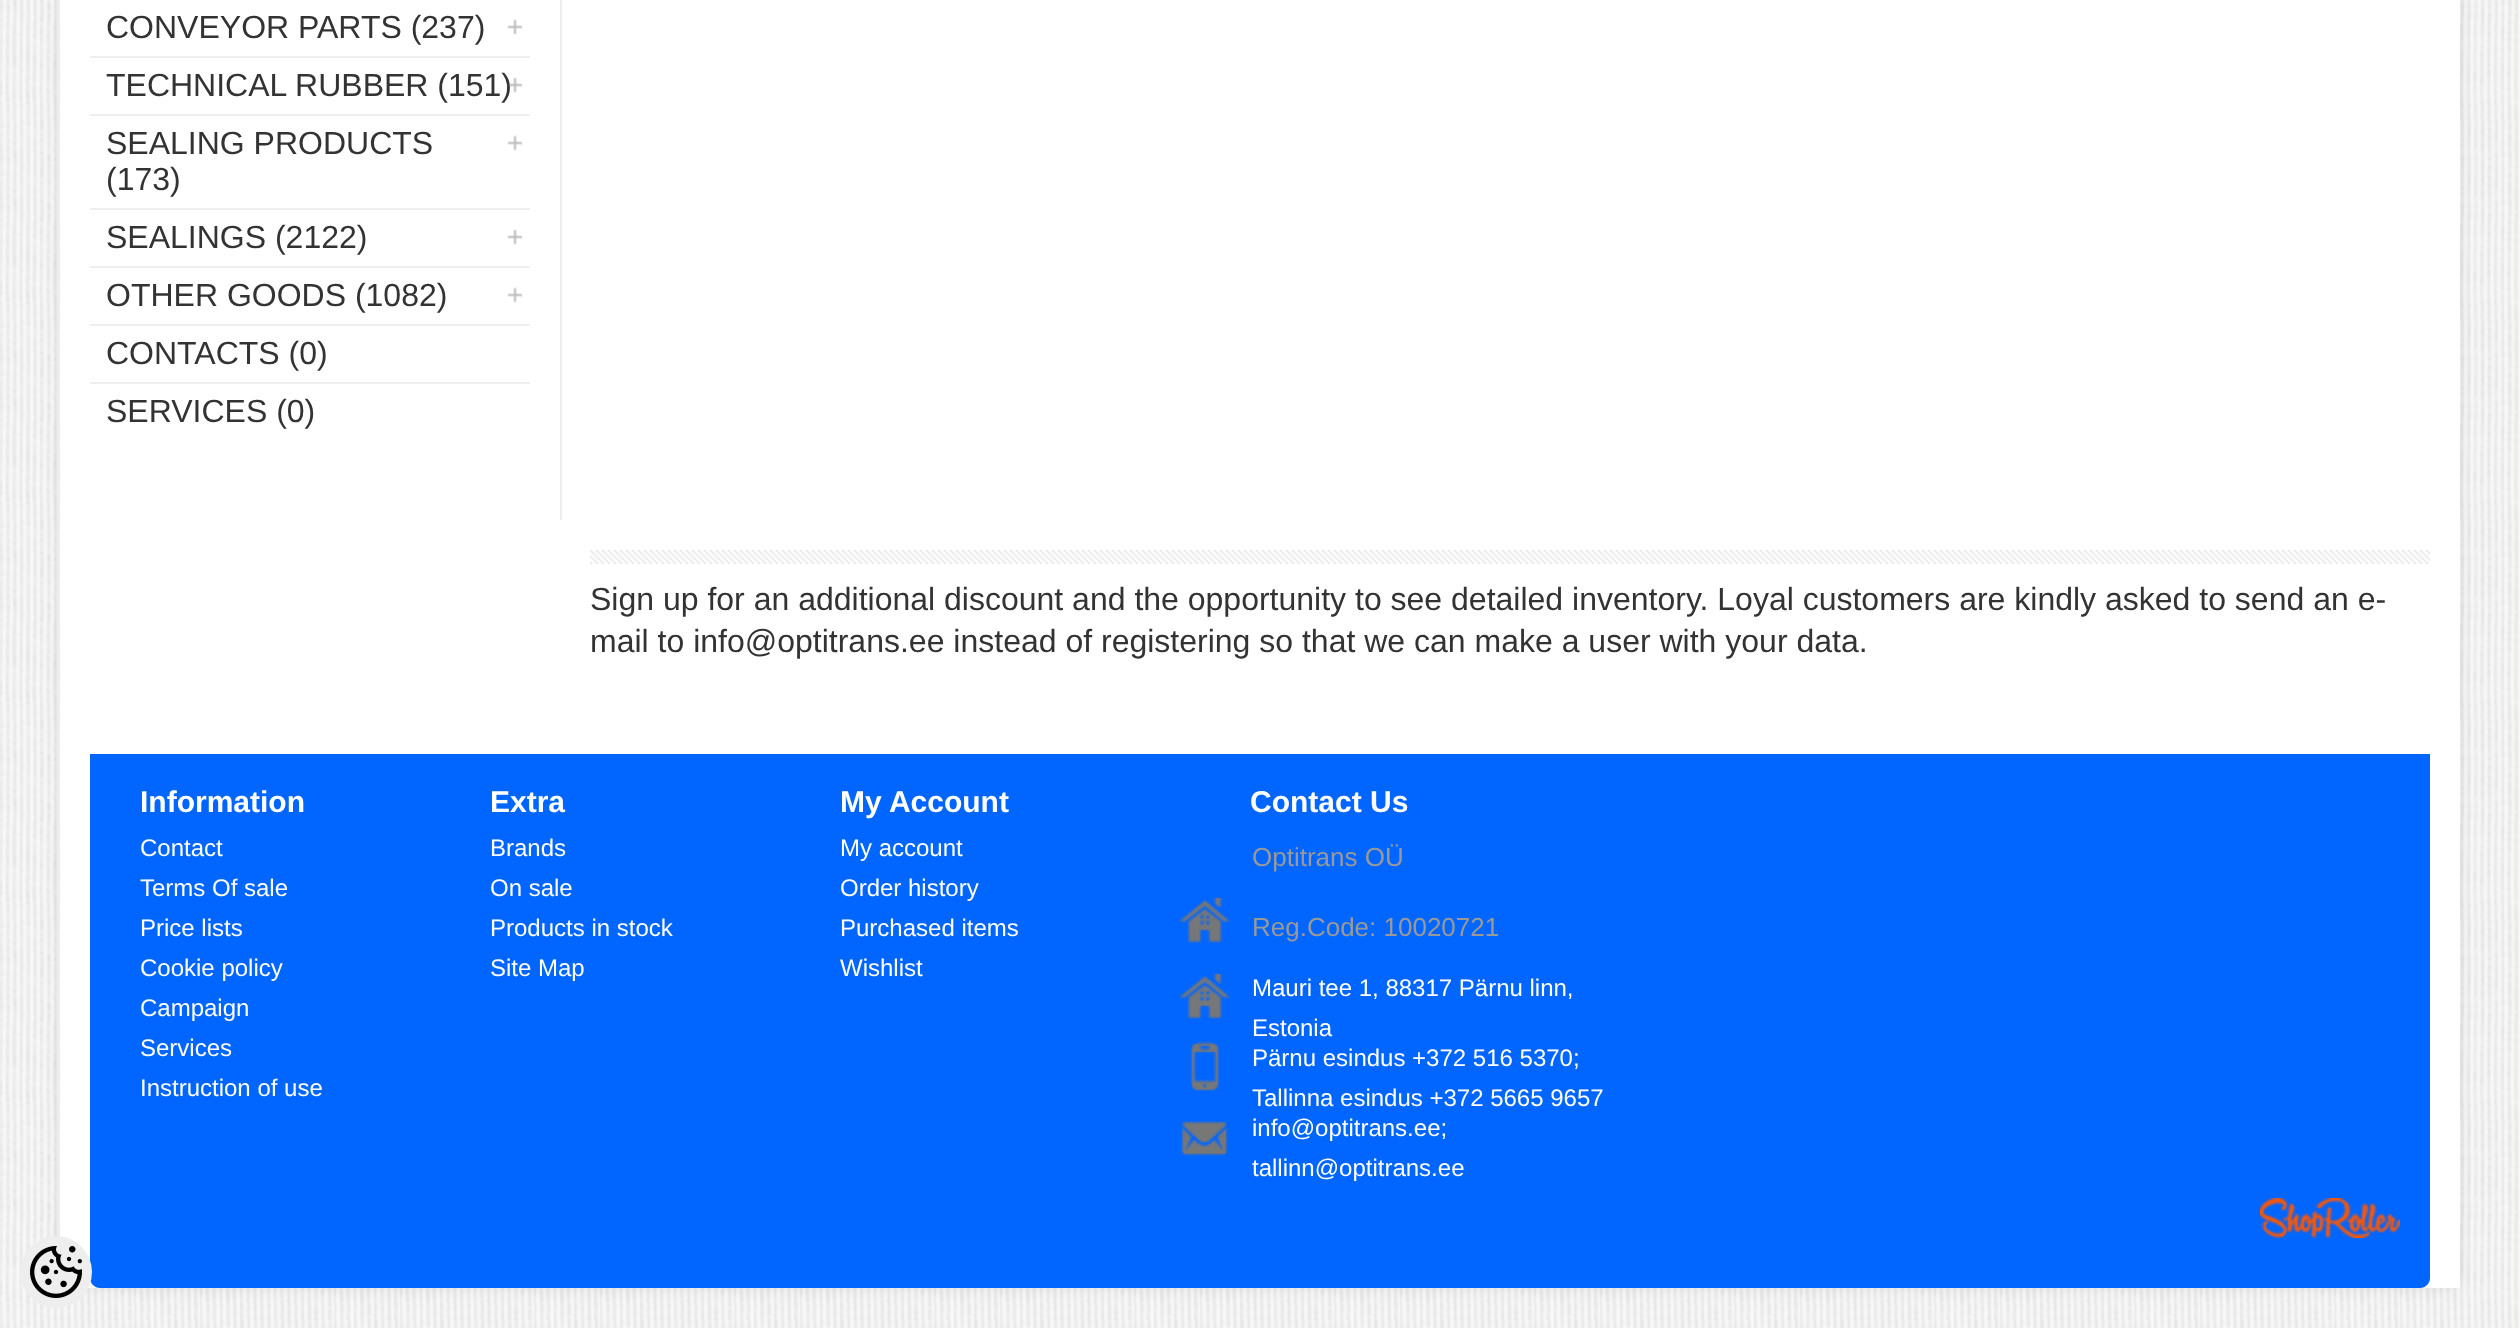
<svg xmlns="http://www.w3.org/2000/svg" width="2520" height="1328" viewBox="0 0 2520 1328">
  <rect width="100%" height="100%" fill="#f8f8fa"/>
  <image x="0" y="0" width="2519" height="1328" href="img/1.png"/>
  <rect x="60" y="-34" width="2400" height="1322" rx="10" fill="#00000014" filter="blur(8px)"/>
  <path d="M60 0h2400v1288H60z" fill="#fff"/>
  <path d="M560 0h2v520H560z" fill="#eee"/>
  <image x="507" y="19" width="16" height="16" href="img/2.png"/>
  <path d="M90 56h440v2H90z" fill="#eee"/>
  <path d="M90 114h440v2H90z" fill="#eee"/>
  <image x="507" y="135" width="16" height="16" href="img/2.png"/>
  <path d="M90 208h440v2H90z" fill="#eee"/>
  <image x="507" y="229" width="16" height="16" href="img/2.png"/>
  <path d="M90 266h440v2H90z" fill="#eee"/>
  <image x="507" y="287" width="16" height="16" href="img/2.png"/>
  <path d="M90 324h440v2H90z" fill="#eee"/>
  <path d="M90 382h440v2H90z" fill="#eee"/>
  <image x="590" y="550" width="1840" height="14" href="img/4.png"/>
  <path d="M90 754H2430V1278C2430 1283.5 2425.5 1288 2420 1288H100C94.5 1288 90 1283.5 90 1278Z" fill="#06f"/>
  <image x="1180" y="898" width="50" height="45" href="img/5.png"/>
  <image x="1180" y="974" width="50" height="45" href="img/5.png"/>
  <image x="1189" y="1041" width="31" height="50" href="img/6.png"/>
  <image x="1181" y="1121" width="48" height="36" href="img/7.png"/>
  <image x="2260" y="1198" width="140" height="40" href="img/8.png"/>
  <circle cx="56" cy="1272" r="36" fill="#eee"/>
  <image x="30" y="1246" width="52" height="52" href="img/9.png"/>
  <g font-family="Liberation Sans" font-size="32" fill="#333">
    <text x="106" y="38">CONVEYOR PARTS (237)</text>
    <text x="106" y="96">TECHNICAL RUBBER (151)</text>
  </g>
  <image x="507" y="77" width="16" height="16" href="img/3.png"/>
  <g font-family="Liberation Sans" font-size="32" fill="#333">
    <text x="106" y="154">SEALING PRODUCTS</text>
    <text x="106" y="190">(173)</text>
    <text x="106" y="248">SEALINGS (2122)</text>
    <text x="106" y="306">OTHER GOODS (1082)</text>
    <text x="106" y="364">CONTACTS (0)</text>
    <text x="106" y="422">SERVICES (0)</text>
    <text x="590" y="610">Sign up for an additional discount and the opportunity to see detailed inventory. Loyal customers are kindly asked to send an e-</text>
    <text x="590" y="652">mail to info@optitrans.ee instead of registering so that we can make a user with your data.</text>
  </g>
  <text x="140" y="812" font-family="Liberation Sans" font-size="30" font-weight="bold" fill="#fff">Information</text>
  <g font-family="Liberation Sans" font-size="24" fill="#fff">
    <text x="140" y="856">Contact</text>
    <text x="140" y="896">Terms Of sale</text>
    <text x="140" y="936">Price lists</text>
    <text x="140" y="976">Cookie policy</text>
    <text x="140" y="1016">Campaign</text>
    <text x="140" y="1056">Services</text>
    <text x="140" y="1096">Instruction of use</text>
  </g>
  <text x="490" y="812" font-family="Liberation Sans" font-size="30" font-weight="bold" fill="#fff">Extra</text>
  <g font-family="Liberation Sans" font-size="24" fill="#fff">
    <text x="490" y="856">Brands</text>
    <text x="490" y="896">On sale</text>
    <text x="490" y="936">Products in stock</text>
    <text x="490" y="976">Site Map</text>
  </g>
  <text x="840" y="812" font-family="Liberation Sans" font-size="30" font-weight="bold" fill="#fff">My Account</text>
  <g font-family="Liberation Sans" font-size="24" fill="#fff">
    <text x="840" y="856">My account</text>
    <text x="840" y="896">Order history</text>
    <text x="840" y="936">Purchased items</text>
    <text x="840" y="976">Wishlist</text>
  </g>
  <text x="1250" y="812" font-family="Liberation Sans" font-size="30" font-weight="bold" fill="#fff">Contact Us</text>
  <g font-family="Liberation Sans" font-size="26" fill="#999">
    <text x="1252" y="866">Optitrans OÜ</text>
    <text x="1252" y="936">Reg.Code: 10020721</text>
  </g>
  <g font-family="Liberation Sans" font-size="24" fill="#fff">
    <text x="1252" y="996">Mauri tee 1, 88317 Pärnu linn,</text>
    <text x="1252" y="1036">Estonia</text>
    <text x="1252" y="1066">Pärnu esindus +372 516 5370;</text>
    <text x="1252" y="1106">Tallinna esindus +372 5665 9657</text>
    <text x="1252" y="1136">info@optitrans.ee;</text>
    <text x="1252" y="1176">tallinn@optitrans.ee</text>
  </g>
</svg>
